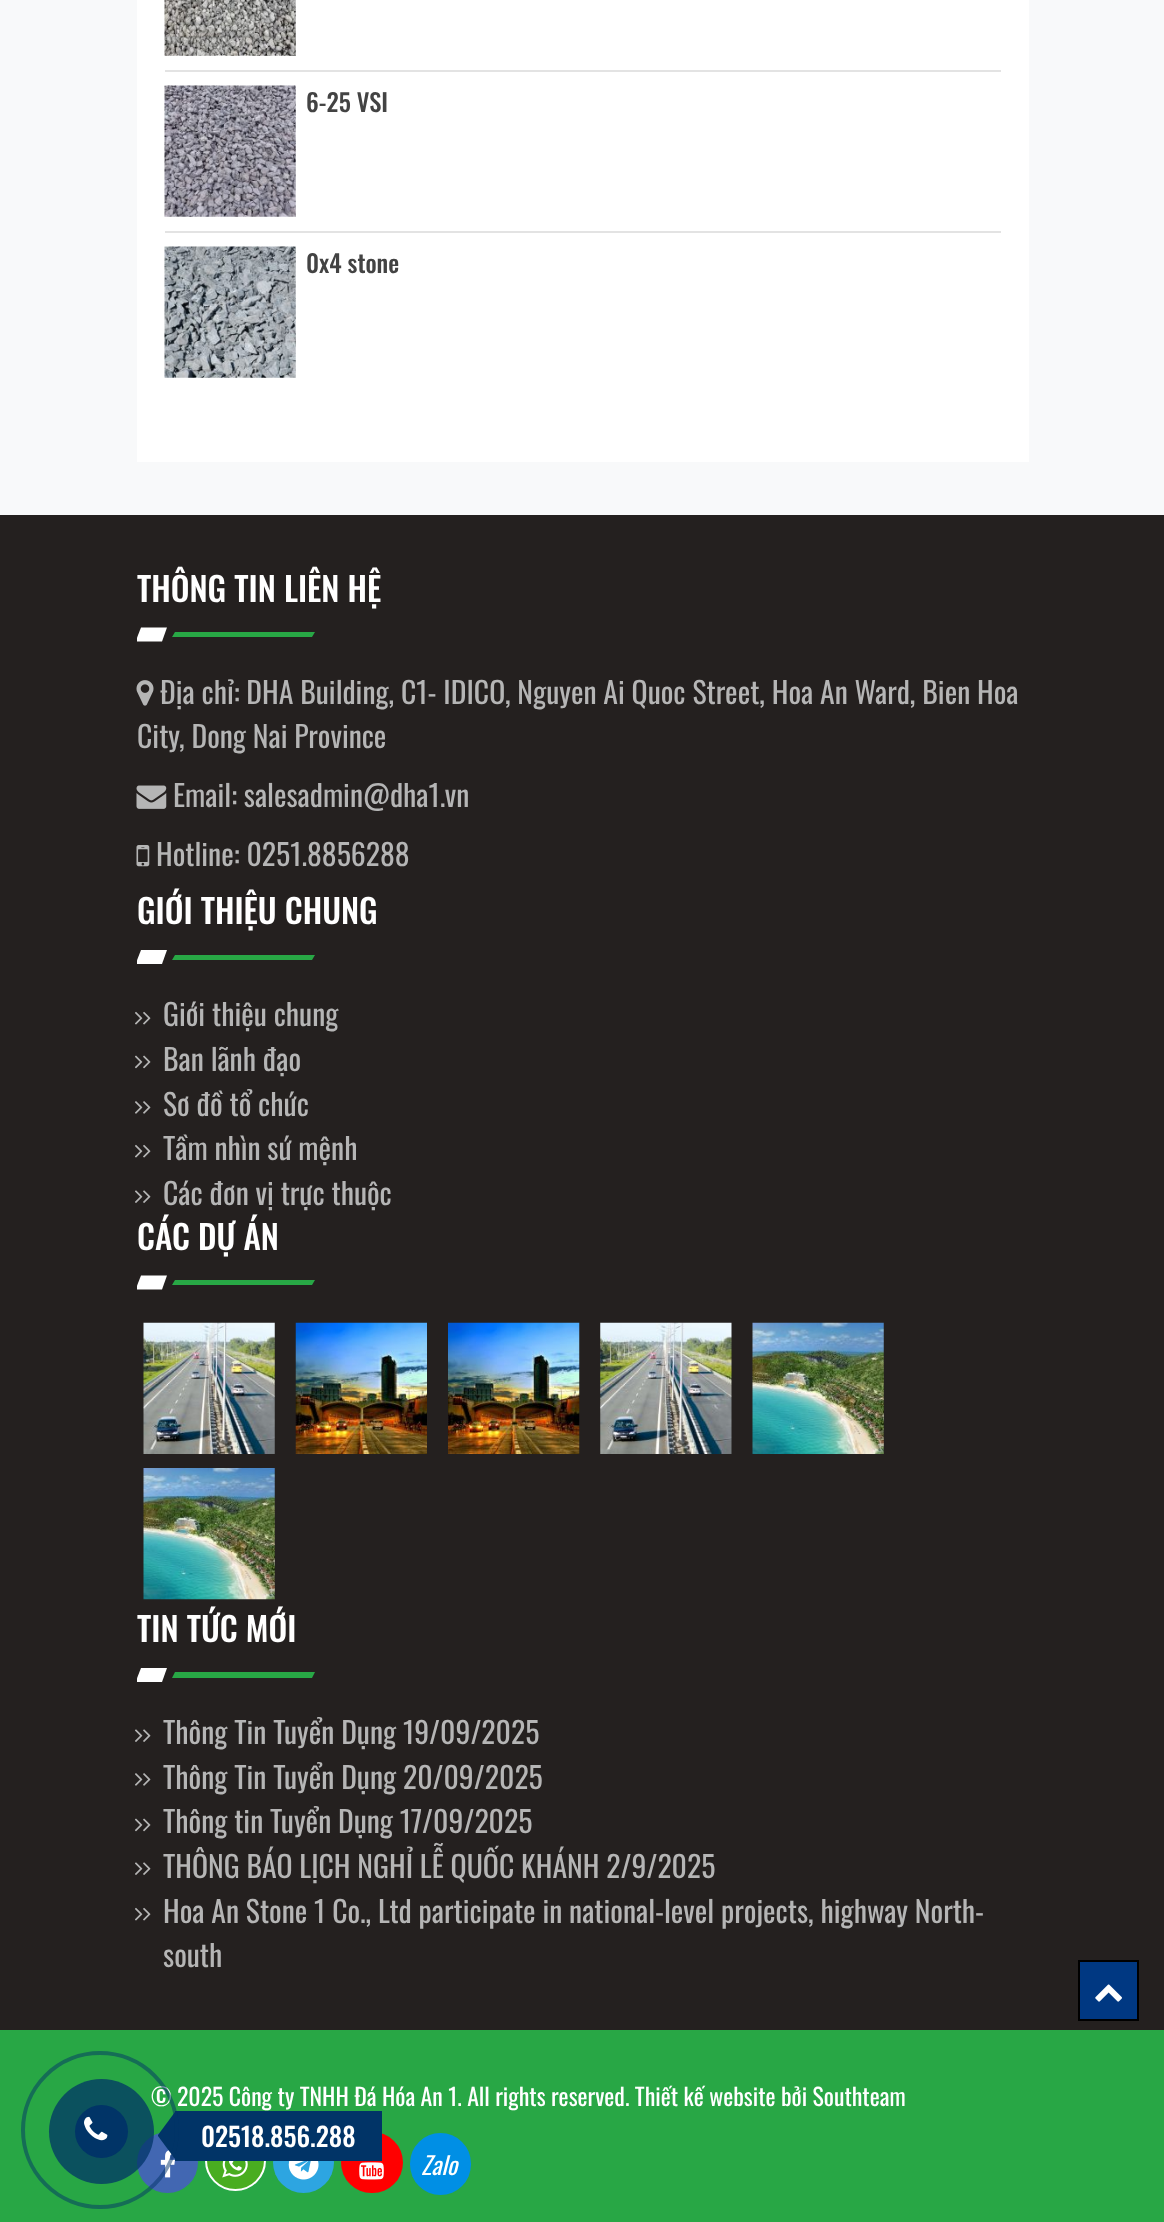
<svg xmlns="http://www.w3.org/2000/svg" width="1164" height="2222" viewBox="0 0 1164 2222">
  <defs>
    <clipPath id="clip1"><path d="M137 625h892v44H137z"/></clipPath>
    <clipPath id="clip2"><path d="M137 947h892v45H137z"/></clipPath>
    <clipPath id="clip3"><path d="M137 1272h892v44H137z"/></clipPath>
    <clipPath id="clip4"><path d="M137 1664h892v46H137z"/></clipPath>
  </defs>
  <rect width="100%" height="100%" fill="#f8f9fa"/>
  <path d="M137 0h892v462H137z" fill="#fff"/>
  <path d="M165 70h836v2H165z" fill="#e3e3e3"/>
  <image x="164" y="0" width="132" height="56" href="img/1.png"/>
  <path d="M165 231h836v2H165z" fill="#e3e3e3"/>
  <image x="164" y="85" width="132" height="132" href="img/2.png"/>
  <image x="164" y="246" width="132" height="132" href="img/3.png"/>
  <path d="M0 515h1164v1515H0z" fill="#24201f"/>
  <g clip-path="url(#clip1)">
    <path d="M141 627.5H167L162 641.5H135.5Z" fill="#fff"/>
  </g>
  <path d="M175 632H315L312 637H172Z" fill="#28a745"/>
  <image x="136" y="680" width="18" height="26" href="img/4.png"/>
  <image x="136" y="785" width="31" height="24" href="img/5.png"/>
  <image x="136" y="845" width="14" height="22" href="img/6.png"/>
  <g clip-path="url(#clip2)">
    <path d="M141 950H167L162 964H135.5Z" fill="#fff"/>
  </g>
  <path d="M175 955H315L312 960H172Z" fill="#28a745"/>
  <image x="135" y="1011" width="16" height="14" href="img/7.png"/>
  <image x="135" y="1055" width="16" height="14" href="img/8.png"/>
  <image x="135" y="1101" width="16" height="13" href="img/9.png"/>
  <image x="135" y="1144" width="16" height="14" href="img/7.png"/>
  <image x="135" y="1190" width="16" height="13" href="img/10.png"/>
  <g clip-path="url(#clip3)">
    <path d="M141 1275.5H167L162 1289.5H135.5Z" fill="#fff"/>
  </g>
  <path d="M175 1280H315L312 1285H172Z" fill="#28a745"/>
  <image x="143" y="1322" width="132" height="132" href="img/11.png"/>
  <image x="295" y="1322" width="132" height="132" href="img/12.png"/>
  <image x="448" y="1322" width="132" height="132" href="img/13.png"/>
  <image x="600" y="1322" width="132" height="132" href="img/14.png"/>
  <image x="752" y="1322" width="132" height="132" href="img/15.png"/>
  <image x="143" y="1468" width="132" height="132" href="img/16.png"/>
  <g clip-path="url(#clip4)">
    <path d="M141 1668H167L162 1682H135.5Z" fill="#fff"/>
  </g>
  <path d="M175 1672H315L312 1678H172Z" fill="#28a745"/>
  <image x="135" y="1729" width="16" height="13" href="img/10.png"/>
  <image x="135" y="1773" width="16" height="13" href="img/9.png"/>
  <image x="135" y="1818" width="16" height="14" href="img/8.png"/>
  <image x="135" y="1862" width="16" height="13" href="img/10.png"/>
  <image x="135" y="1907" width="16" height="14" href="img/7.png"/>
  <path d="M1079 1961h59v59H1079z" fill="#003882" stroke="#000" stroke-width="2"/>
  <image x="1095" y="1984" width="27" height="18" href="img/17.png"/>
  <path d="M0 2030h1164v192H0z" fill="#28a745"/>
  <circle cx="167.5" cy="2162.5" r="30.5" fill="#4267b2"/>
  <image x="160" y="2150" width="15" height="28" href="img/18.png"/>
  <circle cx="235.5" cy="2160.5" r="29.5" fill="#49ad20" stroke="#fff" stroke-width="2"/>
  <image x="222" y="2161" width="26" height="17" href="img/19.png"/>
  <circle cx="303.5" cy="2162.5" r="30.5" fill="#2da5e1"/>
  <image x="288" y="2161" width="31" height="19" href="img/20.png"/>
  <rect x="341" y="2132" width="62" height="61" rx="30.5" fill="#f00"/>
  <image x="359" y="2162" width="25" height="18" href="img/21.png"/>
  <rect x="410" y="2133" width="61" height="62" rx="30.5" fill="#008fe5"/>
  <path d="M175 2111h207v50H175z" fill="#013467"/>
  <path d="M175 2159V2112L158 2135V2136Z" fill="#013467"/>
  <g font-family="Oswald" font-size="24.5" font-weight="500" fill="#434343">
    <text x="306" y="112">6-25 VSI</text>
    <text x="306" y="273">0x4 stone</text>
  </g>
  <text x="137" y="602" font-family="Oswald" font-size="33.25" font-weight="500" fill="#fff">THÔNG TIN LIÊN HỆ</text>
  <g font-family="Oswald" font-size="29.75" fill="#b5b5b5">
    <text x="160" y="704">Địa chỉ: DHA Building, C1- IDICO, Nguyen Ai Quoc Street, Hoa An Ward, Bien Hoa</text>
    <text x="137" y="748">City, Dong Nai Province</text>
    <text x="173" y="807">Email: salesadmin@dha1.vn</text>
    <text x="156" y="866">Hotline: 0251.8856288</text>
  </g>
  <text x="137" y="924" font-family="Oswald" font-size="33.25" font-weight="500" fill="#fff">GIỚI THIỆU CHUNG</text>
  <g font-family="Oswald" font-size="29.75" fill="#b5b5b5">
    <text x="163" y="1026">Giới thiệu chung</text>
    <text x="163" y="1071">Ban lãnh đạo</text>
    <text x="163" y="1116">Sơ đồ tổ chức</text>
    <text x="163" y="1160">Tầm nhìn sứ mệnh</text>
    <text x="163" y="1205">Các đơn vị trực thuộc</text>
  </g>
  <g font-family="Oswald" font-size="33.25" font-weight="500" fill="#fff">
    <text x="137" y="1250">CÁC DỰ ÁN</text>
    <text x="137" y="1642">TIN TỨC MỚI</text>
  </g>
  <g font-family="Oswald" font-size="29.75" fill="#b5b5b5">
    <text x="163" y="1744">Thông Tin Tuyển Dụng 19/09/2025</text>
    <text x="163" y="1789">Thông Tin Tuyển Dụng 20/09/2025</text>
    <text x="163" y="1833">Thông tin Tuyển Dụng 17/09/2025</text>
    <text x="163" y="1878">THÔNG BÁO LỊCH NGHỈ LỄ QUỐC KHÁNH 2/9/2025</text>
    <text x="163" y="1923">Hoa An Stone 1 Co., Ltd participate in national-level projects, highway North-</text>
    <text x="163" y="1967">south</text>
  </g>
  <text x="151" y="2106" font-family="Oswald" font-size="23.8" fill="#fff">© 2025 Công ty TNHH Đá Hóa An 1. All rights reserved. Thiết kế website bởi Southteam</text>
  <text x="421" y="2175" font-family="Oswald" font-size="24.5" font-style="italic" fill="#fff">Zalo</text>
  <circle cx="100" cy="2130" r="77" fill="none" stroke="#01346780" stroke-width="4"/>
  <circle cx="101.5" cy="2131.5" r="52.5" fill="#013467bf"/>
  <circle cx="101.5" cy="2131.5" r="26.5" fill="#013467"/>
  <image x="84" y="2116" width="24" height="25" href="img/22.png"/>
  <text x="201" y="2147" font-family="Oswald" font-size="26.25" font-weight="500" fill="#fff">02518.856.288</text>
</svg>
